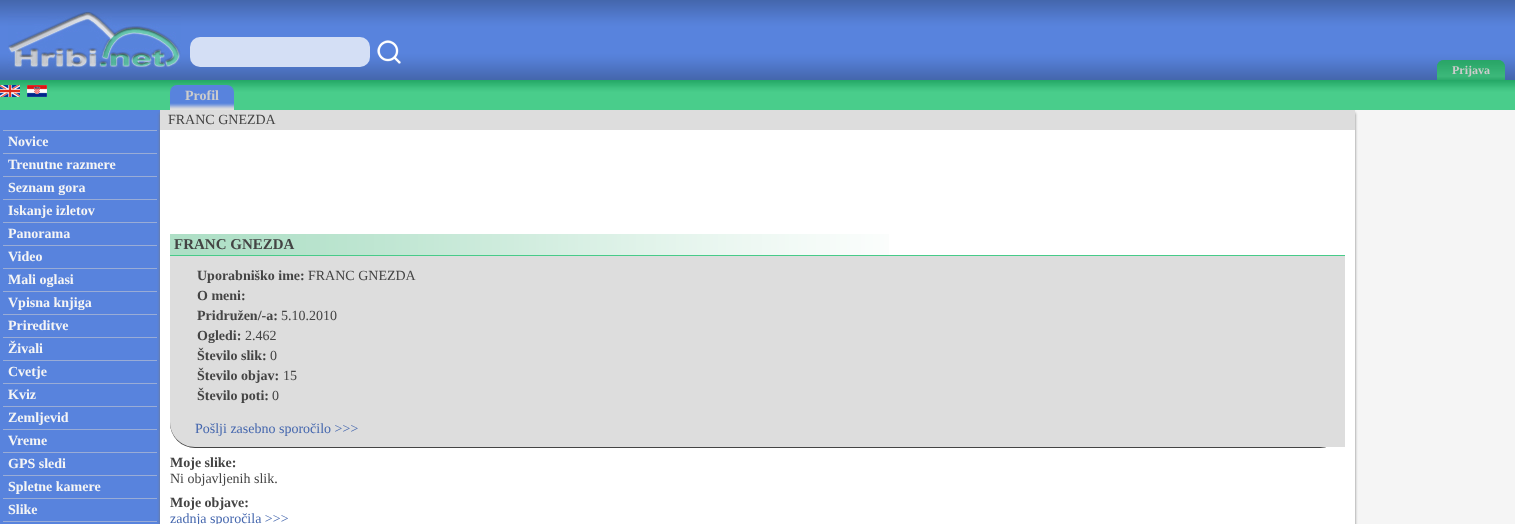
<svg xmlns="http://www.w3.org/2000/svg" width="1515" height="524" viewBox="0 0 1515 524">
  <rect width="100%" height="100%" fill="#f5f5f5"/>
  <image x="0" y="0" width="1515" height="80" href="img/1.png"/>
  <image x="8" y="12" width="173" height="57" href="img/2.png"/>
  <rect x="190" y="37" width="180" height="30" rx="10" fill="#d4dff5"/>
  <image x="377" y="40" width="24" height="24" href="img/3.png"/>
  <path d="M1444 60H1498C1502 60 1505 63 1505 67V80H1437V67C1437 63 1440 60 1444 60Z" fill="#2eac6d"/>
  <image x="1437" y="60" width="68" height="19" href="img/4.png"/>
  <image x="0" y="80" width="1515" height="30" href="img/5.png"/>
  <image x="0" y="85" width="20" height="12" href="img/6.png"/>
  <image x="27" y="85" width="20" height="12" href="img/7.png"/>
  <image x="170" y="85" width="64" height="25" href="img/8.png"/>
  <path d="M0 110h160v414H0z" fill="#5883dd"/>
  <path d="M3 130h154v1H3z" fill="#99acd6"/>
  <path d="M3 153h154v1H3z" fill="#99acd6"/>
  <path d="M3 176h154v1H3z" fill="#99acd6"/>
  <path d="M3 199h154v1H3z" fill="#99acd6"/>
  <path d="M3 222h154v1H3z" fill="#99acd6"/>
  <path d="M3 245h154v1H3z" fill="#99acd6"/>
  <path d="M3 268h154v1H3z" fill="#99acd6"/>
  <path d="M3 291h154v1H3z" fill="#99acd6"/>
  <path d="M3 314h154v1H3z" fill="#99acd6"/>
  <path d="M3 337h154v1H3z" fill="#99acd6"/>
  <path d="M3 360h154v1H3z" fill="#99acd6"/>
  <path d="M3 383h154v1H3z" fill="#99acd6"/>
  <path d="M3 406h154v1H3z" fill="#99acd6"/>
  <path d="M3 429h154v1H3z" fill="#99acd6"/>
  <path d="M3 452h154v1H3z" fill="#99acd6"/>
  <path d="M3 475h154v1H3z" fill="#99acd6"/>
  <path d="M3 498h154v1H3z" fill="#99acd6"/>
  <path d="M3 521h154v1H3z" fill="#99acd6"/>
  <path d="M160 113h1195v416H160z" fill="#777" filter="blur(1.5px)"/>
  <path d="M160 130h1195v394H160z" fill="#fff"/>
  <path d="M160 110h1195v20H160z" fill="#ddd"/>
  <image x="170" y="234" width="719" height="21" href="img/9.png"/>
  <path d="M170 255h1175v1H170z" fill="#47cb89"/>
  <rect x="170" y="257" width="1175" height="191" rx="25" fill="#444" filter="blur(0.5px)"/>
  <path d="M170 256H1345V447H195C181 447 170 436 170 422Z" fill="#ddd"/>
  <text x="1452" y="74" font-family="Liberation Serif" font-size="12" font-weight="bold" fill="#ccc">Prijava</text>
  <text x="185" y="100" font-family="Liberation Serif" font-size="14" font-weight="bold" fill="#ccc">Profil</text>
  <g font-family="Liberation Serif" font-size="14" font-weight="bold" fill="#f5f5f5">
    <text x="8" y="146">Novice</text>
    <text x="8" y="169">Trenutne razmere</text>
    <text x="8" y="192">Seznam gora</text>
    <text x="8" y="215">Iskanje izletov</text>
    <text x="8" y="238">Panorama</text>
    <text x="8" y="261">Video</text>
    <text x="8" y="284">Mali oglasi</text>
    <text x="8" y="307">Vpisna knjiga</text>
    <text x="8" y="330">Prireditve</text>
    <text x="8" y="353">Živali</text>
    <text x="8" y="376">Cvetje</text>
    <text x="8" y="399">Kviz</text>
    <text x="8" y="422">Zemljevid</text>
    <text x="8" y="445">Vreme</text>
    <text x="8" y="468">GPS sledi</text>
    <text x="8" y="491">Spletne kamere</text>
    <text x="8" y="514">Slike</text>
  </g>
  <text x="168" y="124" font-family="Liberation Serif" font-size="14" fill="#444">FRANC GNEZDA</text>
  <text x="174" y="249" font-family="Liberation Serif" font-size="15" font-weight="bold" fill="#444">FRANC GNEZDA</text>
  <text x="197" y="280" font-family="Liberation Serif" font-size="14" font-weight="bold" fill="#444">Uporabniško ime:</text>
  <text x="308" y="280" font-family="Liberation Serif" font-size="14" fill="#444">FRANC GNEZDA</text>
  <g font-family="Liberation Serif" font-size="14" font-weight="bold" fill="#444">
    <text x="197" y="300">O meni:</text>
    <text x="197" y="320">Pridružen/-a:</text>
  </g>
  <text x="281" y="320" font-family="Liberation Serif" font-size="14" fill="#444">5.10.2010</text>
  <text x="197" y="340" font-family="Liberation Serif" font-size="14" font-weight="bold" fill="#444">Ogledi:</text>
  <text x="245" y="340" font-family="Liberation Serif" font-size="14" fill="#444">2.462</text>
  <text x="197" y="360" font-family="Liberation Serif" font-size="14" font-weight="bold" fill="#444">Število slik:</text>
  <text x="270" y="360" font-family="Liberation Serif" font-size="14" fill="#444">0</text>
  <text x="197" y="380" font-family="Liberation Serif" font-size="14" font-weight="bold" fill="#444">Število objav:</text>
  <text x="283" y="380" font-family="Liberation Serif" font-size="14" fill="#444">15</text>
  <text x="197" y="400" font-family="Liberation Serif" font-size="14" font-weight="bold" fill="#444">Število poti:</text>
  <text x="272" y="400" font-family="Liberation Serif" font-size="14" fill="#444">0</text>
  <text x="195" y="433" font-family="Liberation Serif" font-size="14" fill="#4567ae">Pošlji zasebno sporočilo &gt;&gt;&gt;</text>
  <text x="170" y="467" font-family="Liberation Serif" font-size="14" font-weight="bold" fill="#444">Moje slike:</text>
  <text x="170" y="483" font-family="Liberation Serif" font-size="14" fill="#444">Ni objavljenih slik.</text>
  <text x="170" y="507" font-family="Liberation Serif" font-size="14" font-weight="bold" fill="#444">Moje objave:</text>
  <text x="170" y="523" font-family="Liberation Serif" font-size="14" fill="#4567ae">zadnja sporočila &gt;&gt;&gt;</text>
</svg>
